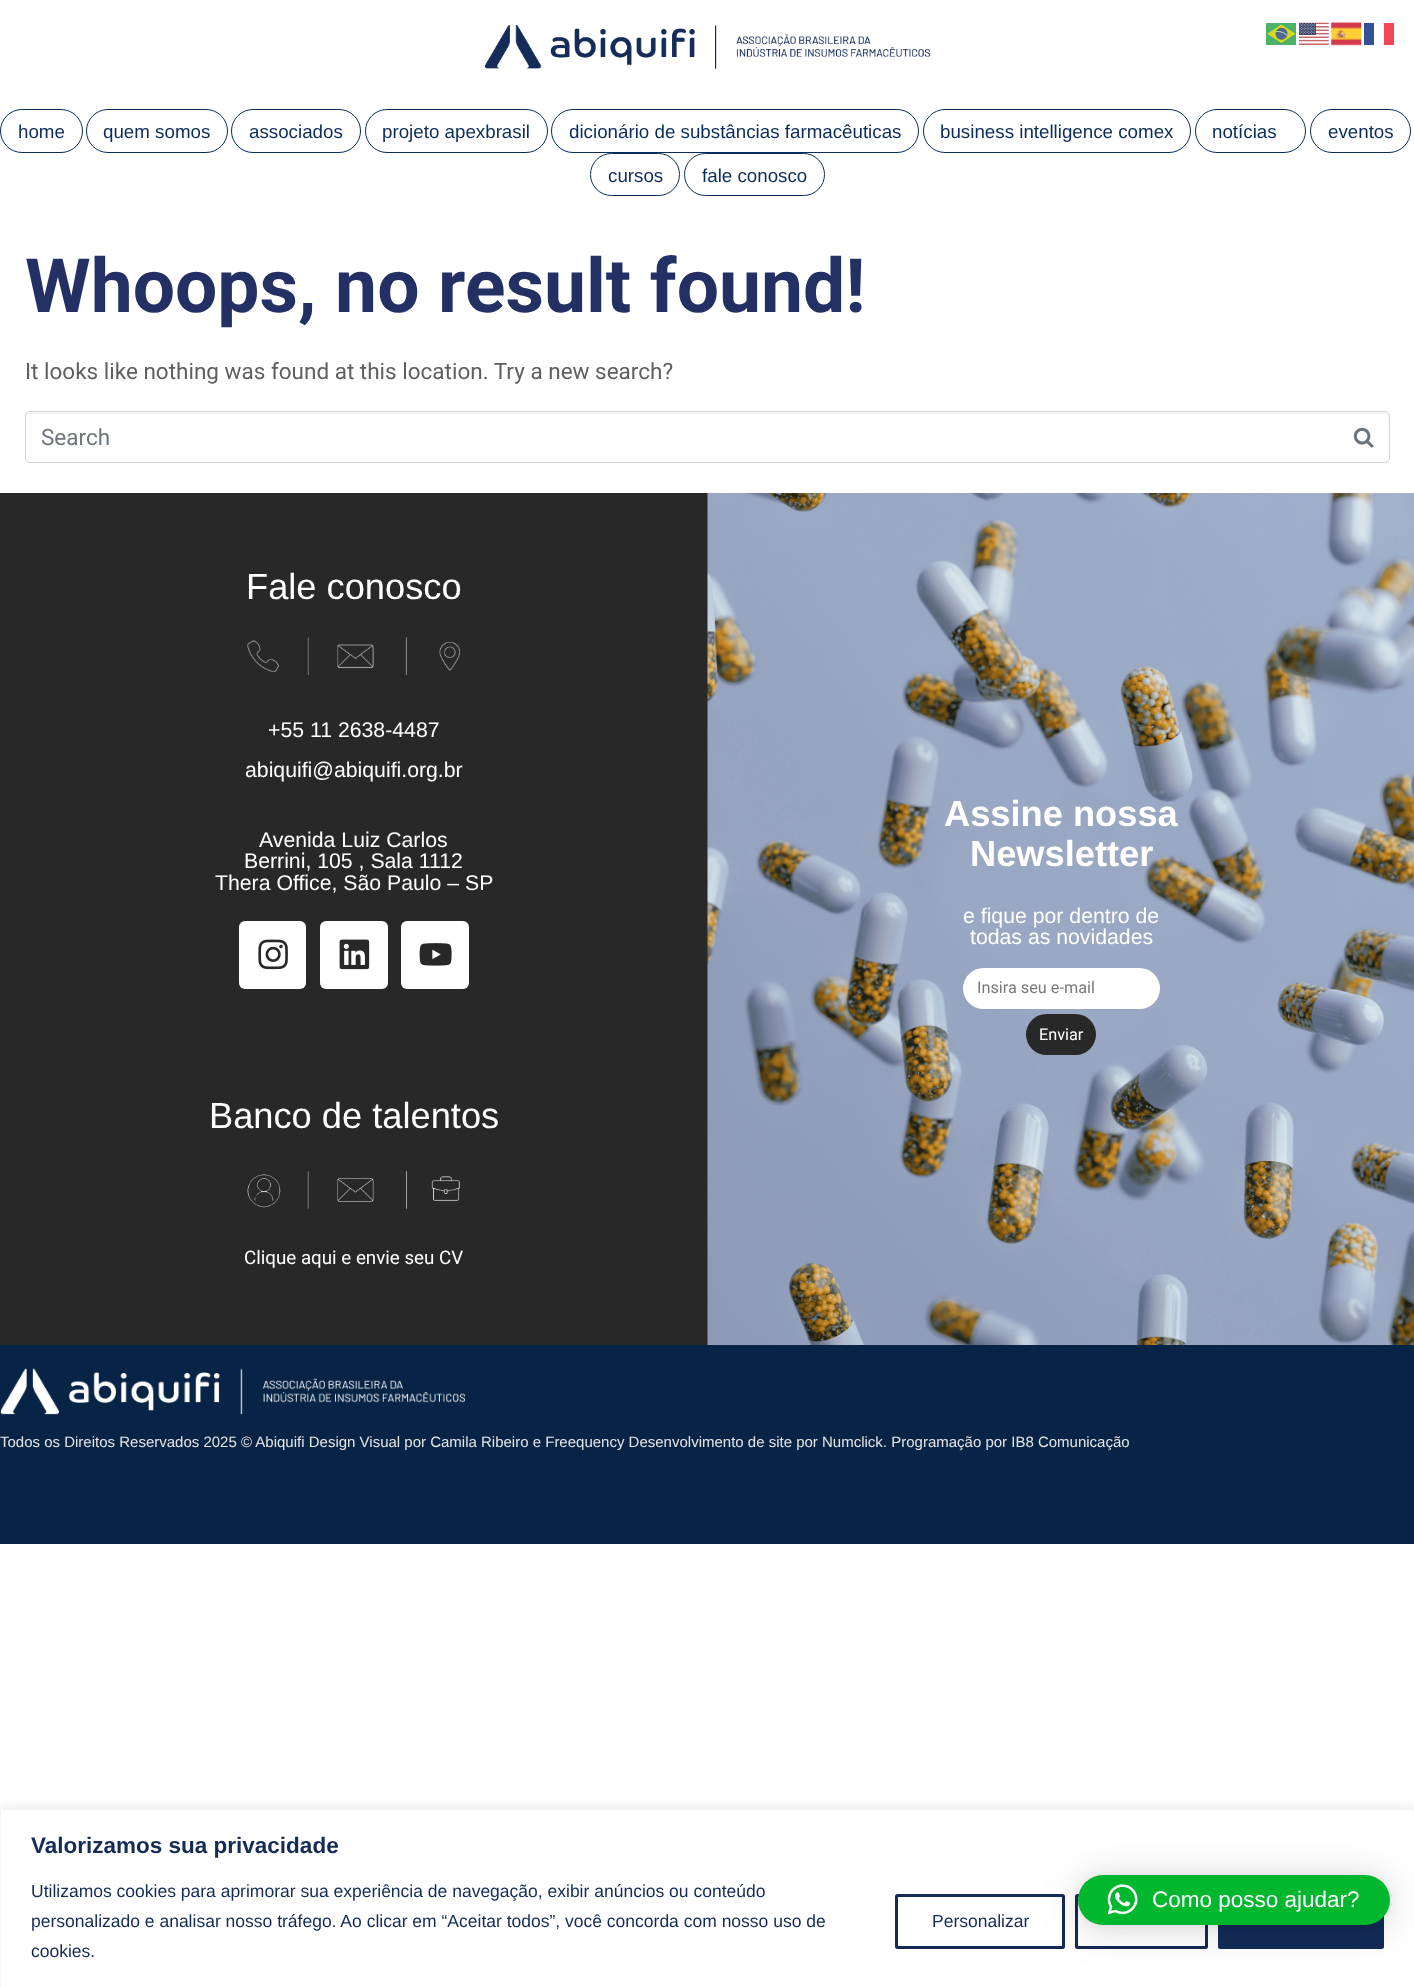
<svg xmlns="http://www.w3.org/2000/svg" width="1414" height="1987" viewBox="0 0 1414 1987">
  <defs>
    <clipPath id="clip1"><path d="M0 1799h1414v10H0z"/></clipPath>
  </defs>
  <rect width="100%" height="100%" fill="#fff"/>
  <image x="1266" y="23" width="30" height="22" href="img/1.png"/>
  <image x="1299" y="22" width="30" height="23" href="img/2.png"/>
  <image x="1331" y="21" width="31" height="25" href="img/3.png"/>
  <path d="M1364 23h10v22H1364z" fill="#335199"/>
  <path d="M1384 23h10v22H1384z" fill="#f54659"/>
  <image x="485" y="25" width="445" height="44" href="img/4.png"/>
  <rect x="0.5" y="109.5" width="82" height="43" rx="21.5" fill="none" stroke="#0b2c5b"/>
  <rect x="86.5" y="109.5" width="141" height="43" rx="21.5" fill="none" stroke="#0b2c5b"/>
  <rect x="231.5" y="109.5" width="129" height="43" rx="21.5" fill="none" stroke="#0b2c5b"/>
  <rect x="365.5" y="109.5" width="182" height="43" rx="21.5" fill="none" stroke="#0b2c5b"/>
  <rect x="551.5" y="109.5" width="367" height="43" rx="21.5" fill="none" stroke="#0b2c5b"/>
  <rect x="923.5" y="109.5" width="267" height="43" rx="21.5" fill="none" stroke="#0b2c5b"/>
  <rect x="1195.5" y="109.5" width="110" height="43" rx="21.5" fill="none" stroke="#0b2c5b"/>
  <rect x="1310.5" y="109.5" width="100" height="43" rx="21.5" fill="none" stroke="#0b2c5b"/>
  <rect x="590.5" y="153.5" width="89" height="42" rx="21" fill="none" stroke="#0b2c5b"/>
  <rect x="684.5" y="153.5" width="140" height="42" rx="21" fill="none" stroke="#0b2c5b"/>
  <path d="M30 414H1385C1387 414 1389 415 1389 418V417C1389 415 1387 413 1385 413H30C28 413 26 415 26 417V418C26 415 28 414 30 414Z" fill="#ececec"/>
  <rect x="25.5" y="411.5" width="1364" height="51" rx="4.5" fill="none" stroke="#ced4da"/>
  <image x="1353" y="427" width="21" height="21" href="img/5.png"/>
  <path d="M0 493h708v852H0z" fill="#282828"/>
  <image x="247" y="637" width="213" height="38" href="img/6.png"/>
  <rect x="239" y="921" width="67" height="68" rx="6" fill="#fff"/>
  <image x="258" y="939" width="30" height="31" href="img/7.png"/>
  <rect x="320" y="921" width="68" height="68" rx="6" fill="#fff"/>
  <image x="339" y="939" width="31" height="31" href="img/8.png"/>
  <rect x="401" y="921" width="68" height="68" rx="6" fill="#fff"/>
  <image x="419" y="943" width="33" height="23" href="img/9.png"/>
  <image x="247" y="1171" width="213" height="38" href="img/10.png"/>
  <image x="707" y="493" width="707" height="852" href="img/11.png"/>
  <rect x="963" y="968" width="197" height="41" rx="20.5" fill="#fff"/>
  <rect x="1026" y="1014" width="70" height="41" rx="20.5" fill="#282828"/>
  <path d="M0 1345h1414v199H0z" fill="#072446"/>
  <image x="0" y="1368" width="465" height="47" href="img/12.png"/>
  <g clip-path="url(#clip1)">
    <path d="M0 1808h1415v178H0z" fill="#acabab4d" filter="blur(6px)"/>
  </g>
  <path d="M0.5 1809.5h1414v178H0.5z" fill="none" stroke="#f4f4f4"/>
  <rect x="896.5" y="1895.5" width="167" height="52" rx="1" fill="none" stroke="#142b58" stroke-width="3"/>
  <rect x="1076.5" y="1895.5" width="130" height="52" rx="1" fill="none" stroke="#142b58" stroke-width="3"/>
  <rect x="1219.5" y="1895.5" width="163" height="52" rx="1" fill="#142b58" stroke="#142b58" stroke-width="3"/>
  <rect x="1078" y="1878" width="312" height="50" rx="25" fill="#00000029" filter="blur(20px)"/>
  <rect x="1078" y="1876" width="312" height="50" rx="25" fill="#0000000f" filter="blur(4px)"/>
  <rect x="1078" y="1875" width="312" height="50" rx="25" fill="#00b72e"/>
  <image x="1107" y="1884" width="31" height="31" href="img/13.png"/>
  <g font-family="Liberation Sans" font-size="18.75" fill="#0b2c5b">
    <text x="18" y="138">home</text>
    <text x="103" y="138">quem somos</text>
    <text x="249" y="138">associados</text>
    <text x="382" y="138">projeto apexbrasil</text>
    <text x="569" y="138">dicionário de substâncias farmacêuticas</text>
    <text x="940" y="138">business intelligence comex</text>
    <text x="1212" y="138">notícias</text>
    <text x="1328" y="138">eventos</text>
    <text x="608" y="182">cursos</text>
    <text x="702" y="182">fale conosco</text>
  </g>
  <text x="25" y="312" font-family="Roboto" font-size="75" font-weight="bold" fill="#233064">Whoops, no result found!</text>
  <text x="25" y="379" font-family="Roboto" font-size="22.5" fill="#5f5f5f">It looks like nothing was found at this location. Try a new search?</text>
  <text x="41" y="445" font-family="Roboto" font-size="22.5" fill="#6c757d">Search</text>
  <text x="246" y="599" font-family="Liberation Sans" font-size="36.25" fill="#fff">Fale conosco</text>
  <g font-family="Liberation Sans" font-size="21.25" fill="#fff">
    <text x="268" y="737">+55 11 2638-4487</text>
    <text x="245" y="777">abiquifi@abiquifi.org.br</text>
    <text x="259" y="847">Avenida Luiz Carlos</text>
    <text x="244" y="868">Berrini, 105 , Sala 1112</text>
    <text x="215" y="890">Thera Office, São Paulo – SP</text>
  </g>
  <text x="209" y="1128" font-family="Liberation Sans" font-size="36.25" fill="#fff">Banco de talentos</text>
  <text x="244" y="1264" font-family="Roboto" font-size="18.75" fill="#fff">Clique aqui e envie seu CV</text>
  <g font-family="Liberation Sans" font-size="36.25" font-weight="bold" fill="#fff">
    <text x="944" y="826">Assine nossa</text>
    <text x="970" y="866">Newsletter</text>
  </g>
  <g font-family="Liberation Sans" font-size="21.25" fill="#fff">
    <text x="963" y="923">e fique por dentro de</text>
    <text x="970" y="944">todas as novidades</text>
  </g>
  <text x="977" y="993" font-family="Roboto" font-size="16.25" fill="#797a7c">Insira seu e-mail</text>
  <text x="1039" y="1040" font-family="Roboto" font-size="16.25" fill="#fff">Enviar</text>
  <text x="0" y="1447" font-family="Liberation Sans" font-size="15" fill="#e6e6e6">Todos os Direitos Reservados 2025 © Abiquifi Design Visual por Camila Ribeiro e Freequency Desenvolvimento de site por Numclick. Programação por IB8 Comunicação</text>
  <text x="31" y="1853" font-family="Liberation Sans" font-size="22.5" font-weight="bold" fill="#142b58">Valorizamos sua privacidade</text>
  <g font-family="Liberation Sans" font-size="17.5" fill="#142b58">
    <text x="31" y="1897">Utilizamos cookies para aprimorar sua experiência de navegação, exibir anúncios ou conteúdo</text>
    <text x="31" y="1927">personalizado e analisar nosso tráfego. Ao clicar em “Aceitar todos”, você concorda com nosso uso de</text>
    <text x="31" y="1957">cookies.</text>
    <text x="932" y="1927">Personalizar</text>
  </g>
  <text x="1152" y="1907" font-family="Liberation Sans" font-size="22.5" fill="#fff">Como posso ajudar?</text>
</svg>
